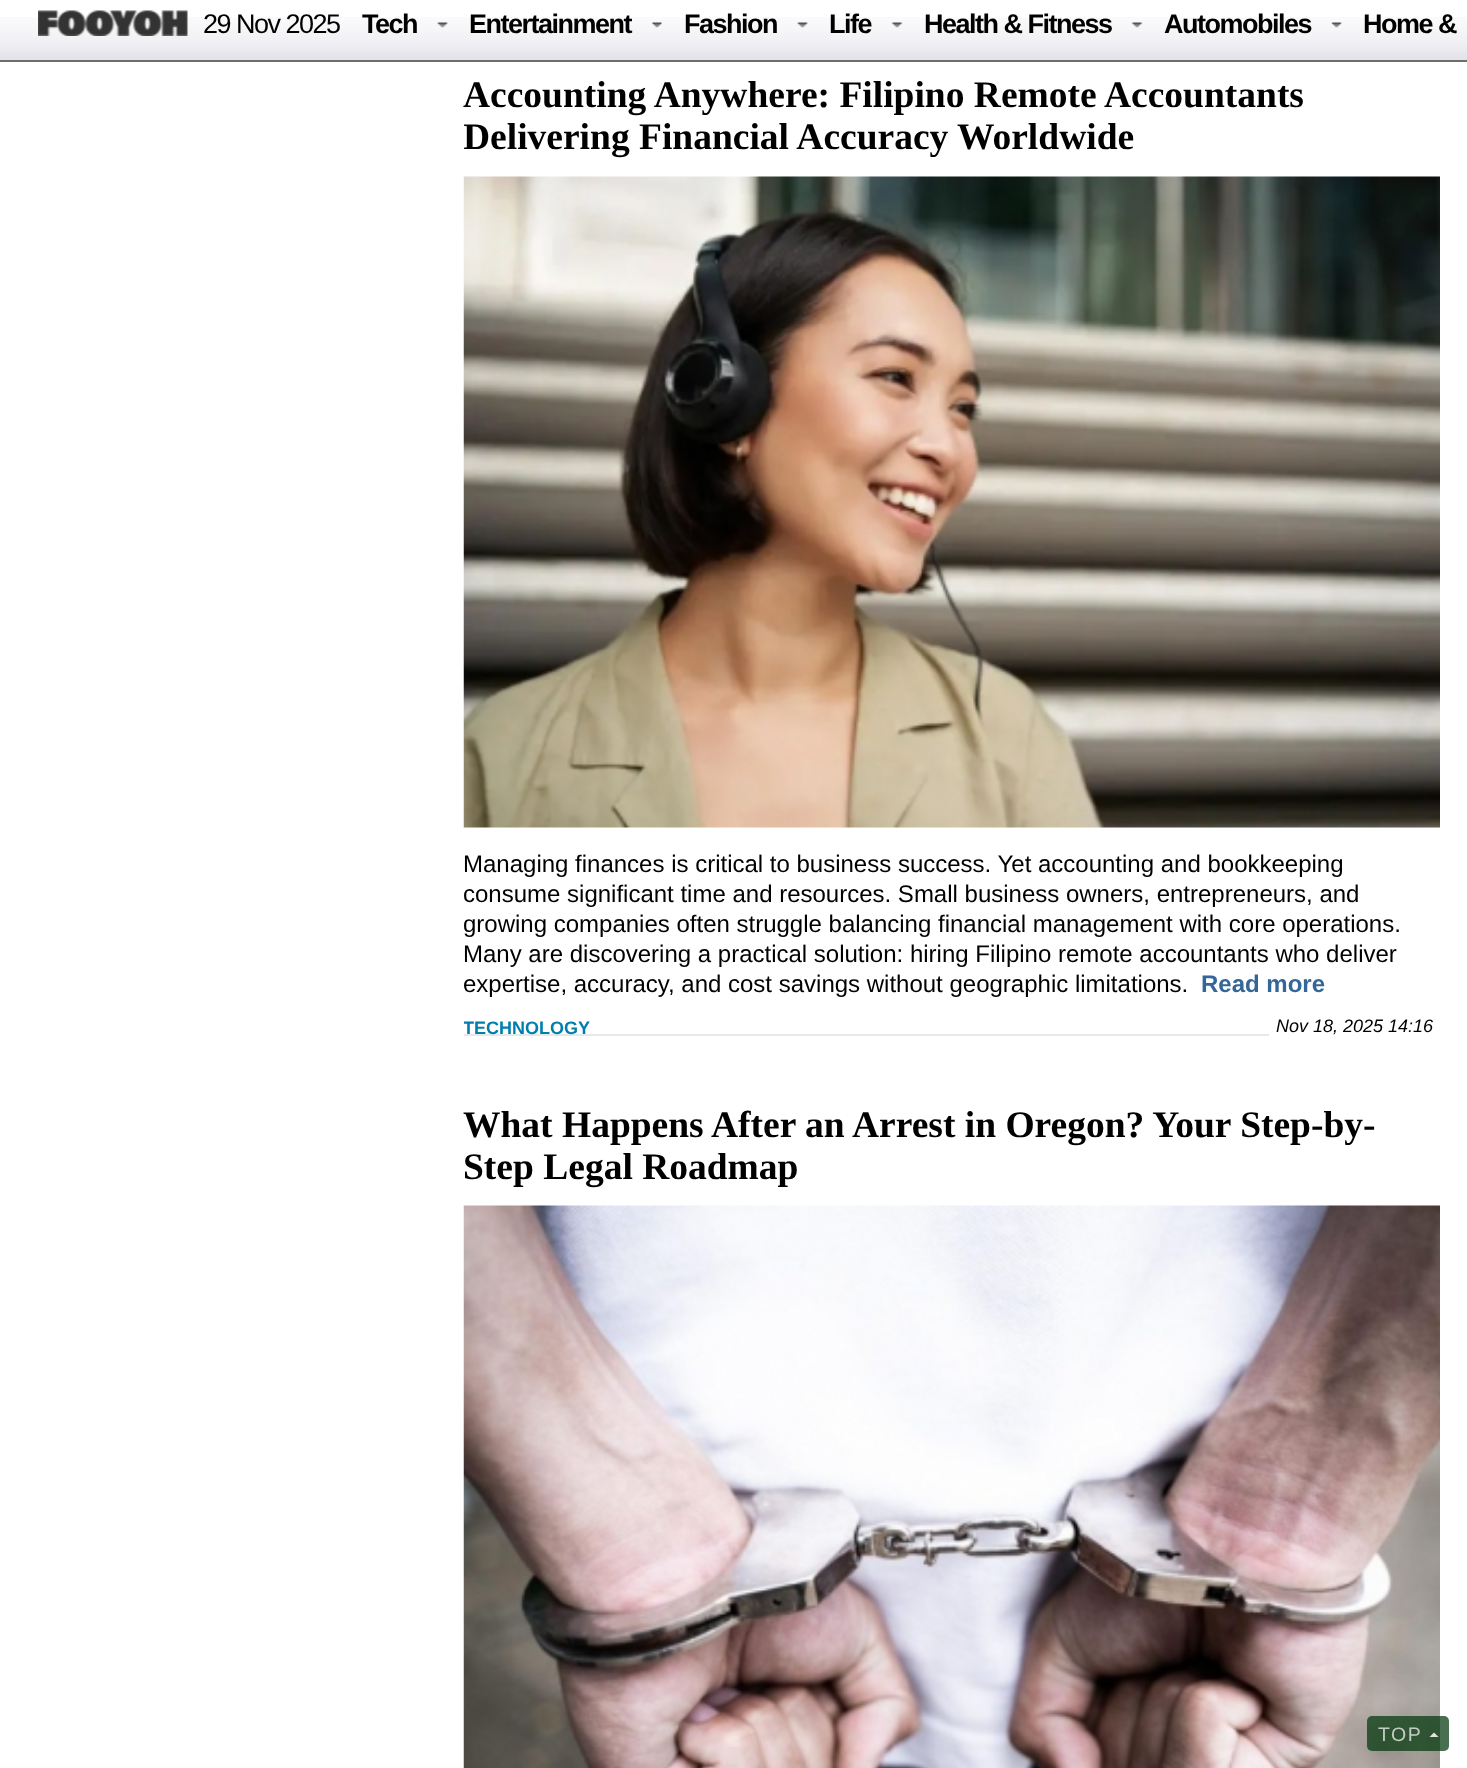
<svg xmlns="http://www.w3.org/2000/svg" width="1467" height="1768" viewBox="0 0 1467 1768">
  <defs>
    <clipPath id="clip1"><path d="M464 42h976v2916H464z"/></clipPath>
    <clipPath id="clip2"><path d="M464 849h976v150H464z"/></clipPath>
  </defs>
  <rect width="100%" height="100%" fill="#fff"/>
  <image x="0" y="17" width="1467" height="43" href="img/1.png"/>
  <path d="M0 60h1467v2H0z" fill="#6d6f6d"/>
  <image x="38" y="10" width="150" height="26" href="img/2.png"/>
  <image x="437" y="22" width="11" height="6" href="img/3.png"/>
  <image x="652" y="22" width="10" height="6" href="img/4.png"/>
  <image x="797" y="22" width="11" height="6" href="img/3.png"/>
  <image x="891" y="22" width="12" height="6" href="img/5.png"/>
  <image x="1131" y="22" width="12" height="6" href="img/5.png"/>
  <image x="1331" y="22" width="11" height="6" href="img/6.png"/>
  <image x="463" y="176" width="977" height="652" href="img/7.png"/>
  <path d="M464 1034h805v2H464z" fill="#e8e8e8"/>
  <image x="463" y="1205" width="977" height="563" href="img/8.png"/>
  <rect x="1367" y="1716" width="82" height="35" rx="5" fill="#043a0eba"/>
  <path d="M1438.5 1737H1429.5L1434 1732.5Z" fill="#e3e2e1"/>
  <text x="203" y="33" font-family="Liberation Sans" font-size="27" letter-spacing="-1.5" fill="#000">29 Nov 2025</text>
  <g font-family="Liberation Sans" font-size="27" font-weight="bold" letter-spacing="-1.5" fill="#000">
    <text x="362" y="33">Tech</text>
    <text x="469" y="33">Entertainment</text>
    <text x="684" y="33">Fashion</text>
    <text x="829" y="33">Life</text>
    <text x="924" y="33">Health &amp; Fitness</text>
    <text x="1164" y="33">Automobiles</text>
    <text x="1363" y="33">Home &amp;</text>
  </g>
  <text x="463" y="107" font-family="Liberation Serif" font-size="37.5" font-weight="bold" fill="#000">Accounting Anywhere: Filipino Remote Accountants</text>
  <g clip-path="url(#clip1)">
    <text x="463" y="149" font-family="Liberation Serif" font-size="37.5" font-weight="bold" fill="#000">Delivering Financial Accuracy Worldwide</text>
  </g>
  <text x="463" y="872" font-family="Liberation Sans" font-size="24" fill="#000">Managing finances is critical to business success. Yet accounting and bookkeeping</text>
  <g clip-path="url(#clip2)">
    <g font-family="Liberation Sans" font-size="24" fill="#000">
      <text x="463" y="902">consume significant time and resources. Small business owners, entrepreneurs, and</text>
      <text x="463" y="932">growing companies often struggle balancing financial management with core operations.</text>
    </g>
  </g>
  <text x="463" y="962" font-family="Liberation Sans" font-size="24" fill="#000">Many are discovering a practical solution: hiring Filipino remote accountants who deliver</text>
  <g clip-path="url(#clip2)">
    <text x="463" y="992" font-family="Liberation Sans" font-size="24" fill="#000">expertise, accuracy, and cost savings without geographic limitations.</text>
  </g>
  <text x="1201" y="992" font-family="Liberation Sans" font-size="24" font-weight="bold" fill="#369">Read more</text>
  <g clip-path="url(#clip1)">
    <text x="463" y="1034" font-family="Liberation Sans" font-size="18" font-weight="bold" fill="#007ead">TECHNOLOGY</text>
  </g>
  <text x="1276" y="1032" font-family="Liberation Sans" font-size="18" font-style="italic" fill="#000">Nov 18, 2025 14:16</text>
  <g font-family="Liberation Serif" font-size="37.5" font-weight="bold" fill="#000">
    <text x="463" y="1137">What Happens After an Arrest in Oregon? Your Step-by-</text>
    <text x="463" y="1179">Step Legal Roadmap</text>
  </g>
  <text x="1378" y="1741" font-family="Liberation Sans" font-size="19.5" letter-spacing="1.5" fill="#c3cdc4">TOP</text>
</svg>
